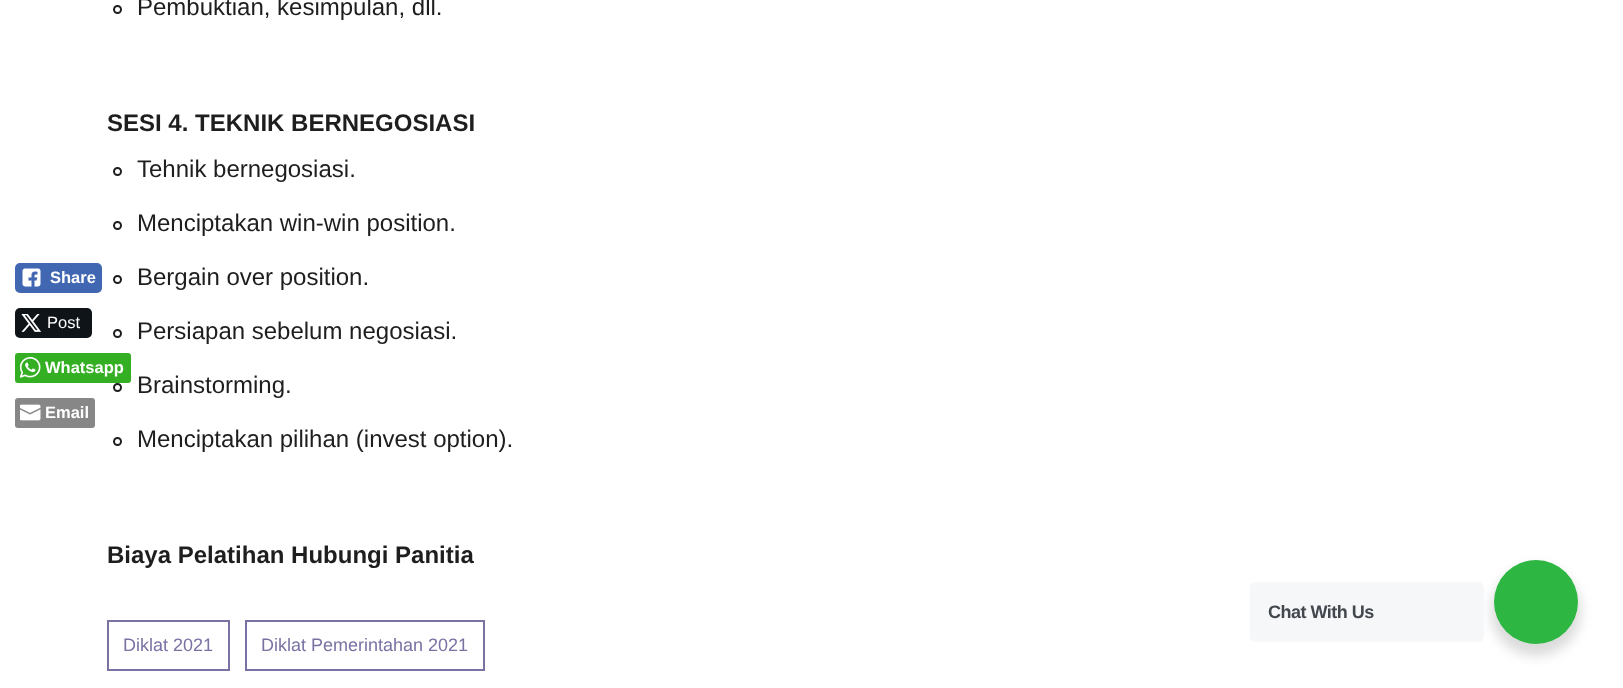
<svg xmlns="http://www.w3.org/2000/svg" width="1623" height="688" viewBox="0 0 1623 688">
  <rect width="100%" height="100%" fill="#fff"/>
  <rect x="16" y="264" width="85" height="28" rx="4" fill="#4267b2" stroke="#4267b2" stroke-width="2"/>
  <image x="22" y="268" width="19" height="19" href="img/1.png"/>
  <rect x="15" y="308" width="77" height="30" rx="5" fill="#0f1419"/>
  <image x="21" y="314" width="21" height="18" href="img/2.png"/>
  <rect x="15" y="353" width="116" height="30" rx="3" fill="#34af23"/>
  <image x="20" y="357" width="21" height="21" href="img/3.png"/>
  <rect x="15" y="398" width="80" height="30" rx="3" fill="#878787"/>
  <image x="20" y="404" width="21" height="17" href="img/4.png"/>
  <circle cx="117.5" cy="9.5" r="3.5" fill="none" stroke="#1e1e1e" stroke-width="2"/>
  <circle cx="117.5" cy="171.5" r="3.5" fill="none" stroke="#1e1e1e" stroke-width="2"/>
  <circle cx="117.5" cy="225.5" r="3.5" fill="none" stroke="#1e1e1e" stroke-width="2"/>
  <circle cx="117.5" cy="279.5" r="3.5" fill="none" stroke="#1e1e1e" stroke-width="2"/>
  <circle cx="117.5" cy="333.5" r="3.5" fill="none" stroke="#1e1e1e" stroke-width="2"/>
  <circle cx="117.5" cy="387.5" r="3.5" fill="none" stroke="#1e1e1e" stroke-width="2"/>
  <circle cx="117.5" cy="441.5" r="3.5" fill="none" stroke="#1e1e1e" stroke-width="2"/>
  <path d="M108 621h121v49H108z" fill="none" stroke="#7873a3" stroke-width="2"/>
  <path d="M246 621h238v49H246z" fill="none" stroke="#7873a3" stroke-width="2"/>
  <rect x="1491" y="566" width="90" height="90" rx="45" fill="#00000024" filter="blur(6px)"/>
  <rect x="1250" y="582" width="234" height="60" rx="6" fill="#f5f7f9"/>
  <circle cx="1536" cy="602" r="42" fill="#2db742"/>
  <text x="50" y="283" font-family="Liberation Sans" font-size="16.5" font-weight="bold" fill="#fff">Share</text>
  <text x="47" y="328" font-family="Liberation Sans" font-size="16.5" fill="#fff">Post</text>
  <g font-family="Liberation Sans" font-size="16.5" font-weight="bold" fill="#fff">
    <text x="45" y="373">Whatsapp</text>
    <text x="45" y="418">Email</text>
  </g>
  <text x="137" y="15" font-family="Liberation Sans" font-size="24" fill="#1e1e1e">Pembuktian, kesimpulan, dll.</text>
  <text x="107" y="131" font-family="Liberation Sans" font-size="24" font-weight="bold" fill="#1e1e1e">SESI 4. TEKNIK BERNEGOSIASI</text>
  <g font-family="Liberation Sans" font-size="24" fill="#1e1e1e">
    <text x="137" y="177">Tehnik bernegosiasi.</text>
    <text x="137" y="231">Menciptakan win-win position.</text>
    <text x="137" y="285">Bergain over position.</text>
    <text x="137" y="339">Persiapan sebelum negosiasi.</text>
    <text x="137" y="393">Brainstorming.</text>
    <text x="137" y="447">Menciptakan pilihan (invest option).</text>
  </g>
  <text x="107" y="563" font-family="Liberation Sans" font-size="24" font-weight="bold" fill="#1e1e1e">Biaya Pelatihan Hubungi Panitia</text>
  <g font-family="Liberation Sans" font-size="18" fill="#7873a3">
    <text x="123" y="651">Diklat 2021</text>
    <text x="261" y="651">Diklat Pemerintahan 2021</text>
  </g>
  <text x="1268" y="618" font-family="Liberation Sans" font-size="18" font-weight="bold" letter-spacing="-0.5" fill="#43474e">Chat With Us</text>
</svg>
